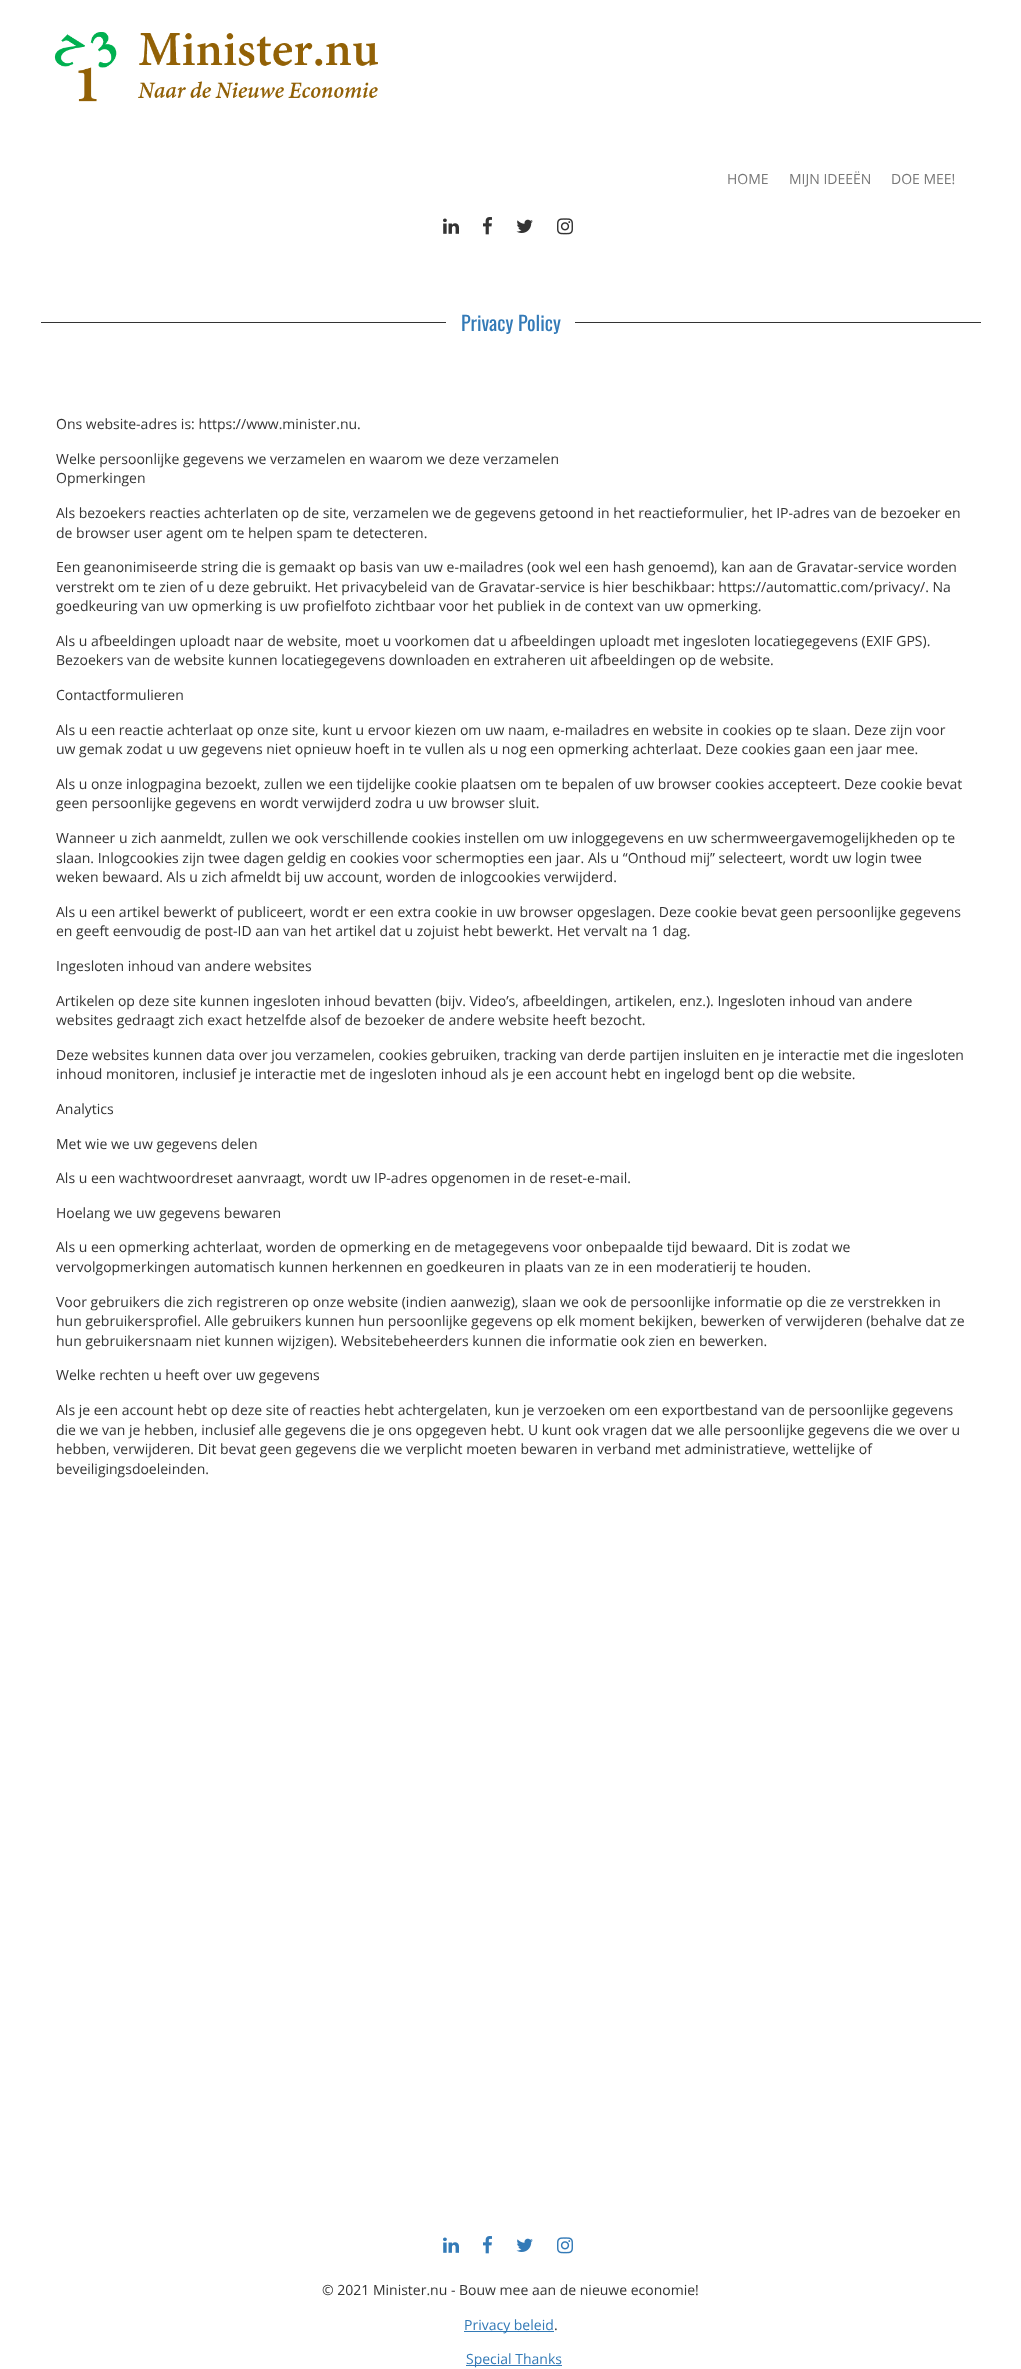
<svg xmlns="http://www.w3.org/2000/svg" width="1021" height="2369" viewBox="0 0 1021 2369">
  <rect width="100%" height="100%" fill="#fff"/>
  <image x="54" y="32" width="324" height="70" href="img/1.png"/>
  <image x="443" y="218" width="16" height="16" href="img/2.png"/>
  <image x="483" y="217" width="9" height="18" href="img/3.png"/>
  <image x="516" y="219" width="17" height="14" href="img/4.png"/>
  <image x="557" y="218" width="16" height="17" href="img/5.png"/>
  <path d="M41 322h940v1H41z" fill="#333"/>
  <path d="M446 322h129v1H446z" fill="#fff"/>
  <image x="443" y="2237" width="16" height="16" href="img/6.png"/>
  <image x="483" y="2236" width="9" height="18" href="img/7.png"/>
  <image x="516" y="2238" width="17" height="14" href="img/8.png"/>
  <image x="557" y="2237" width="16" height="17" href="img/9.png"/>
  <path d="M464 2331h90v1H464z" fill="#337ab7"/>
  <path d="M466 2365h96v1H466z" fill="#337ab7"/>
  <g font-family="Open Sans" font-size="14" fill="#777">
    <text x="727" y="184">HOME</text>
    <text x="789" y="184">MIJN IDEEËN</text>
    <text x="891" y="184">DOE MEE!</text>
  </g>
  <text x="461" y="331" font-family="Oswald" font-size="20" fill="#337ab7">Privacy Policy</text>
  <g font-family="Open Sans" font-size="14" fill="#333">
    <text x="56" y="429">Ons website-adres is: https://www.minister.nu.</text>
    <text x="56" y="464">Welke persoonlijke gegevens we verzamelen en waarom we deze verzamelen</text>
    <text x="56" y="483">Opmerkingen</text>
    <text x="56" y="518">Als bezoekers reacties achterlaten op de site, verzamelen we de gegevens getoond in het reactieformulier, het IP-adres van de bezoeker en</text>
    <text x="56" y="538">de browser user agent om te helpen spam te detecteren.</text>
    <text x="56" y="572">Een geanonimiseerde string die is gemaakt op basis van uw e-mailadres (ook wel een hash genoemd), kan aan de Gravatar-service worden</text>
    <text x="56" y="592">verstrekt om te zien of u deze gebruikt. Het privacybeleid van de Gravatar-service is hier beschikbaar: https://automattic.com/privacy/. Na</text>
    <text x="56" y="611">goedkeuring van uw opmerking is uw profielfoto zichtbaar voor het publiek in de context van uw opmerking.</text>
    <text x="56" y="646">Als u afbeeldingen uploadt naar de website, moet u voorkomen dat u afbeeldingen uploadt met ingesloten locatiegegevens (EXIF GPS).</text>
    <text x="56" y="665">Bezoekers van de website kunnen locatiegegevens downloaden en extraheren uit afbeeldingen op de website.</text>
    <text x="56" y="700">Contactformulieren</text>
    <text x="56" y="735">Als u een reactie achterlaat op onze site, kunt u ervoor kiezen om uw naam, e-mailadres en website in cookies op te slaan. Deze zijn voor</text>
    <text x="56" y="754">uw gemak zodat u uw gegevens niet opnieuw hoeft in te vullen als u nog een opmerking achterlaat. Deze cookies gaan een jaar mee.</text>
    <text x="56" y="789">Als u onze inlogpagina bezoekt, zullen we een tijdelijke cookie plaatsen om te bepalen of uw browser cookies accepteert. Deze cookie bevat</text>
    <text x="56" y="808">geen persoonlijke gegevens en wordt verwijderd zodra u uw browser sluit.</text>
    <text x="56" y="843">Wanneer u zich aanmeldt, zullen we ook verschillende cookies instellen om uw inloggegevens en uw schermweergavemogelijkheden op te</text>
    <text x="56" y="863">slaan. Inlogcookies zijn twee dagen geldig en cookies voor schermopties een jaar. Als u “Onthoud mij” selecteert, wordt uw login twee</text>
    <text x="56" y="882">weken bewaard. Als u zich afmeldt bij uw account, worden de inlogcookies verwijderd.</text>
    <text x="56" y="917">Als u een artikel bewerkt of publiceert, wordt er een extra cookie in uw browser opgeslagen. Deze cookie bevat geen persoonlijke gegevens</text>
    <text x="56" y="936">en geeft eenvoudig de post-ID aan van het artikel dat u zojuist hebt bewerkt. Het vervalt na 1 dag.</text>
    <text x="56" y="971">Ingesloten inhoud van andere websites</text>
    <text x="56" y="1006">Artikelen op deze site kunnen ingesloten inhoud bevatten (bijv. Video’s, afbeeldingen, artikelen, enz.). Ingesloten inhoud van andere</text>
    <text x="56" y="1025">websites gedraagt zich exact hetzelfde alsof de bezoeker de andere website heeft bezocht.</text>
    <text x="56" y="1060">Deze websites kunnen data over jou verzamelen, cookies gebruiken, tracking van derde partijen insluiten en je interactie met die ingesloten</text>
    <text x="56" y="1079">inhoud monitoren, inclusief je interactie met de ingesloten inhoud als je een account hebt en ingelogd bent op die website.</text>
    <text x="56" y="1114">Analytics</text>
    <text x="56" y="1149">Met wie we uw gegevens delen</text>
    <text x="56" y="1183">Als u een wachtwoordreset aanvraagt, wordt uw IP-adres opgenomen in de reset-e-mail.</text>
    <text x="56" y="1218">Hoelang we uw gegevens bewaren</text>
    <text x="56" y="1252">Als u een opmerking achterlaat, worden de opmerking en de metagegevens voor onbepaalde tijd bewaard. Dit is zodat we</text>
    <text x="56" y="1272">vervolgopmerkingen automatisch kunnen herkennen en goedkeuren in plaats van ze in een moderatierij te houden.</text>
    <text x="56" y="1307">Voor gebruikers die zich registreren op onze website (indien aanwezig), slaan we ook de persoonlijke informatie op die ze verstrekken in</text>
    <text x="56" y="1326">hun gebruikersprofiel. Alle gebruikers kunnen hun persoonlijke gegevens op elk moment bekijken, bewerken of verwijderen (behalve dat ze</text>
    <text x="56" y="1346">hun gebruikersnaam niet kunnen wijzigen). Websitebeheerders kunnen die informatie ook zien en bewerken.</text>
    <text x="56" y="1380">Welke rechten u heeft over uw gegevens</text>
    <text x="56" y="1415">Als je een account hebt op deze site of reacties hebt achtergelaten, kun je verzoeken om een exportbestand van de persoonlijke gegevens</text>
    <text x="56" y="1435">die we van je hebben, inclusief alle gegevens die je ons opgegeven hebt. U kunt ook vragen dat we alle persoonlijke gegevens die we over u</text>
    <text x="56" y="1454">hebben, verwijderen. Dit bevat geen gegevens die we verplicht moeten bewaren in verband met administratieve, wettelijke of</text>
    <text x="56" y="1474">beveiligingsdoeleinden.</text>
    <text x="322" y="2295">© 2021 Minister.nu - Bouw mee aan de nieuwe economie!</text>
  </g>
  <text x="464" y="2330" font-family="Open Sans" font-size="14" fill="#337ab7">Privacy beleid</text>
  <text x="554" y="2330" font-family="Open Sans" font-size="14" fill="#333">.</text>
  <text x="466" y="2364" font-family="Open Sans" font-size="14" fill="#337ab7">Special Thanks</text>
</svg>
